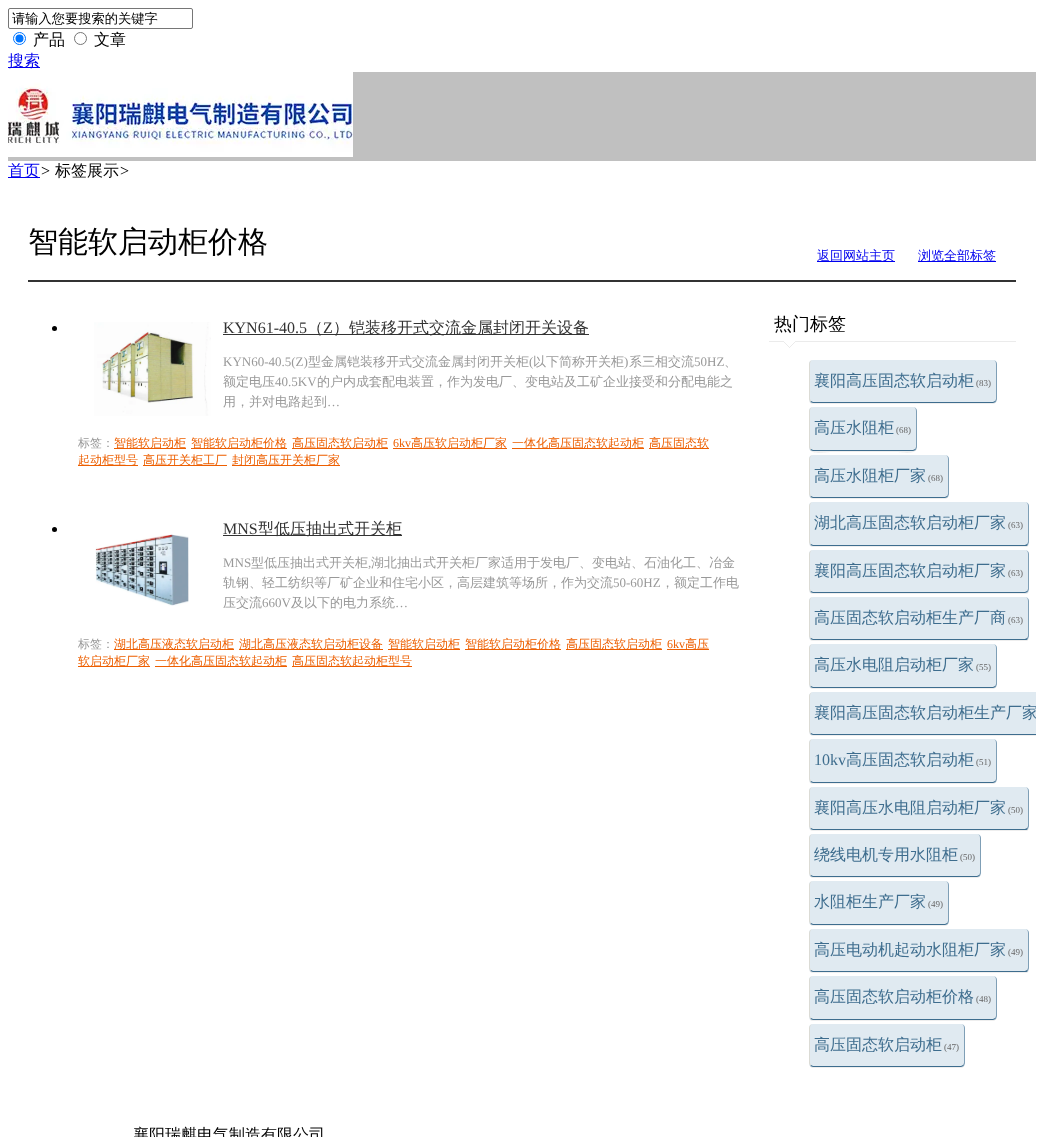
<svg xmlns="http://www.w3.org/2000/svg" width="1044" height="1137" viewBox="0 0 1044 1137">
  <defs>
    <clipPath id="clip1"><path d="M8 182h1028v927H8z"/></clipPath>
  </defs>
  <rect width="100%" height="100%" fill="#fff"/>
  <rect x="8.5" y="8.5" width="184" height="20" rx="1.5" fill="none" stroke="#767676"/>
  <circle cx="19.5" cy="38.5" r="6" fill="none" stroke="#0075ff"/>
  <circle cx="19.5" cy="38.5" r="4" fill="#0075ff"/>
  <circle cx="80.5" cy="38.5" r="6" fill="none" stroke="#767676"/>
  <path d="M8 67h32v1H8z" fill="#00e"/>
  <path d="M8 72h1028v89H8z" fill="#c0c0c0"/>
  <image x="8" y="72" width="345" height="85" href="img/1.png"/>
  <path d="M8 177h32v1H8z" fill="#00e"/>
  <path d="M28 280h988v2H28z" fill="#333"/>
  <path d="M817 261h78v1H817z" fill="#00e"/>
  <path d="M918 261h78v1H918z" fill="#00e"/>
  <circle cx="54.5" cy="328.5" r="2.5" fill="#000"/>
  <image x="94" y="322" width="117" height="94" href="img/2.png"/>
  <path d="M223 334h366v1H223z" fill="#333"/>
  <path d="M114 448h72v1H114z" fill="#ed5f01"/>
  <path d="M191 448h96v1H191z" fill="#ed5f01"/>
  <path d="M292 448h96v1H292z" fill="#ed5f01"/>
  <path d="M393 448h114v1H393z" fill="#ed5f01"/>
  <path d="M512 448h132v1H512z" fill="#ed5f01"/>
  <path d="M649 448h60v1H649z" fill="#ed5f01"/>
  <path d="M78 465h60v1H78z" fill="#ed5f01"/>
  <path d="M143 465h84v1H143z" fill="#ed5f01"/>
  <path d="M232 465h108v1H232z" fill="#ed5f01"/>
  <circle cx="54.5" cy="529.5" r="2.5" fill="#000"/>
  <path d="M223 535h179v1H223z" fill="#333"/>
  <image x="95" y="534" width="94" height="72" href="img/3.png"/>
  <path d="M114 649h120v1H114z" fill="#ed5f01"/>
  <path d="M239 649h144v1H239z" fill="#ed5f01"/>
  <path d="M388 649h72v1H388z" fill="#ed5f01"/>
  <path d="M465 649h96v1H465z" fill="#ed5f01"/>
  <path d="M566 649h96v1H566z" fill="#ed5f01"/>
  <path d="M667 649h42v1H667z" fill="#ed5f01"/>
  <path d="M78 666h72v1H78z" fill="#ed5f01"/>
  <path d="M155 666h132v1H155z" fill="#ed5f01"/>
  <path d="M292 666h120v1H292z" fill="#ed5f01"/>
  <path d="M769 341h247v1H769z" fill="#ebebeb"/>
  <image x="784" y="341" width="11" height="7" href="img/4.png"/>
  <path d="M809 399C809 402 810 404 813 404H994C996 403 997 401 997 399C997 401 995 403 993 403H813C811 403 809 401 809 399Z" fill="#eee"/>
  <rect x="809" y="360" width="188" height="43" rx="4" fill="#e0eaf1"/>
  <path d="M997 364C997 362 995 360 993 360C995 360 996 362 996 364V399L995 401L996 402C996 401 997 400 997 399Z" fill="#7f9fb6"/>
  <path d="M813 403H993L996 402L995 401L993 402H813L811 401L810 402Z" fill="#3e6d8e"/>
  <path d="M813 360C811 360 809 362 809 364V399C809 400 810 401 810 402L811 401L810 399V364C810 362 811 360 813 360Z" fill="#dbdbd5"/>
  <path d="M809 447C809 456 826 452 830 452H896C900 452 917 456 917 447C917 449 915 451 913 451H813C811 451 809 449 809 447Z" fill="#eee"/>
  <rect x="809" y="407" width="108" height="44" rx="4" fill="#e0eaf1"/>
  <path d="M917 411C917 409 915 407 913 407C915 407 916 409 916 411V447L915 449L916 450C916 449 917 448 917 447Z" fill="#7f9fb6"/>
  <path d="M813 451H913L916 450L915 449L913 450H813L811 449L810 450Z" fill="#3e6d8e"/>
  <path d="M813 407C811 407 809 409 809 411V447C809 448 810 449 810 450L811 449L810 447V411C810 409 811 407 813 407Z" fill="#dbdbd5"/>
  <path d="M809 494V495C809 497 811 499 813 499H945C947 499 949 497 949 495V494C949 496 947 498 945 498H813C811 498 809 496 809 494Z" fill="#eee"/>
  <rect x="809" y="455" width="140" height="43" rx="4" fill="#e0eaf1"/>
  <path d="M949 459C949 457 947 455 945 455C947 455 948 457 948 459V494L947 496L948 497C948 496 949 495 949 494Z" fill="#7f9fb6"/>
  <path d="M813 498H945L948 497L947 496L945 497H813L811 496L810 497Z" fill="#3e6d8e"/>
  <path d="M813 455C811 455 809 457 809 459V494C809 495 810 496 810 497L811 496L810 494V459C810 457 811 455 813 455Z" fill="#dbdbd5"/>
  <path d="M809 542C809 545 810 547 813 547H1027C1029 546 1029 544 1029 542C1029 544 1027 546 1025 546H813C811 546 809 544 809 542Z" fill="#eee"/>
  <rect x="809" y="502" width="220" height="44" rx="4" fill="#e0eaf1"/>
  <path d="M1029 506C1029 504 1027 502 1025 502C1027 502 1028 504 1028 506V542L1027 544L1028 545C1028 544 1029 543 1029 542Z" fill="#7f9fb6"/>
  <path d="M813 546H1025C1026 546 1027 546 1028 545L1027 544L1025 545H813L811 544L810 545Z" fill="#3e6d8e"/>
  <path d="M813 502C811 502 809 504 809 506V542C809 543 810 544 810 545L811 544L810 542V506C810 504 811 502 813 502Z" fill="#dbdbd5"/>
  <path d="M809 589C809 592 810 594 813 594H1027C1029 593 1029 591 1029 589C1029 591 1027 593 1025 593H813C811 593 809 591 809 589Z" fill="#eee"/>
  <rect x="809" y="550" width="220" height="43" rx="4" fill="#e0eaf1"/>
  <path d="M1029 554C1029 552 1027 550 1025 550C1027 550 1028 552 1028 554V589L1027 591L1028 592C1028 591 1029 590 1029 589Z" fill="#7f9fb6"/>
  <path d="M813 593H1025C1026 593 1027 592 1028 592L1027 591L1025 592H813L811 591L810 592Z" fill="#3e6d8e"/>
  <path d="M813 550C811 550 809 552 809 554V589C809 590 810 591 810 592L811 591L810 589V554C810 552 811 550 813 550Z" fill="#dbdbd5"/>
  <path d="M809 636C809 639 810 641 813 641H1027C1029 640 1029 638 1029 636C1029 638 1027 640 1025 640H813C811 640 809 638 809 636Z" fill="#eee"/>
  <rect x="809" y="597" width="220" height="43" rx="4" fill="#e0eaf1"/>
  <path d="M1029 601C1029 599 1027 597 1025 597C1027 597 1028 599 1028 601V636L1027 638L1028 639C1028 638 1029 637 1029 636Z" fill="#7f9fb6"/>
  <path d="M813 640H1025C1026 640 1027 640 1028 639L1027 638L1025 639H813L811 638L810 639Z" fill="#3e6d8e"/>
  <path d="M813 597C811 597 809 599 809 601V636C809 637 810 638 810 639L811 638L810 636V601C810 599 811 597 813 597Z" fill="#dbdbd5"/>
  <path d="M809 684C809 687 810 689 813 689H994C996 688 997 686 997 684C997 686 995 688 993 688H813C811 688 809 686 809 684Z" fill="#eee"/>
  <rect x="809" y="644" width="188" height="44" rx="4" fill="#e0eaf1"/>
  <path d="M997 648C997 646 995 644 993 644C995 644 996 646 996 648V684L995 686L996 687C996 686 997 685 997 684Z" fill="#7f9fb6"/>
  <path d="M813 688H993L996 687L995 686L993 687H813L811 686L810 687Z" fill="#3e6d8e"/>
  <path d="M813 644C811 644 809 646 809 648V684C809 685 810 686 810 687L811 686L810 684V648C810 646 811 644 813 644Z" fill="#dbdbd5"/>
  <g clip-path="url(#clip1)">
    <path d="M809 731V732C809 734 811 736 813 736H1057C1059 736 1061 734 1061 732V731C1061 733 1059 735 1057 735H813C811 735 809 733 809 731Z" fill="#eee"/>
  </g>
  <path d="M813 692H1036V735H813C811 735 809 733 809 731V696C809 694 811 692 813 692Z" fill="#e0eaf1"/>
  <g clip-path="url(#clip1)">
    <path d="M813 735H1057C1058 735 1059 734 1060 734L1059 733L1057 734H813L811 733L810 734Z" fill="#3e6d8e"/>
  </g>
  <path d="M813 692C811 692 809 694 809 696V731C809 732 810 733 810 734L811 733L810 731V696C810 694 811 692 813 692Z" fill="#dbdbd5"/>
  <path d="M809 779C809 782 810 784 813 784H994C996 783 997 781 997 779C997 781 995 783 993 783H813C811 783 809 781 809 779Z" fill="#eee"/>
  <rect x="809" y="739" width="188" height="44" rx="4" fill="#e0eaf1"/>
  <path d="M997 743C997 741 995 739 993 739C995 739 996 741 996 743V779L995 781L996 782C996 781 997 780 997 779Z" fill="#7f9fb6"/>
  <path d="M813 783H993L996 782L995 781L993 782H813L811 781L810 782Z" fill="#3e6d8e"/>
  <path d="M813 739C811 739 809 741 809 743V779C809 780 810 781 810 782L811 781L810 779V743C810 741 811 739 813 739Z" fill="#dbdbd5"/>
  <path d="M809 826C809 829 810 831 813 831H1027C1029 830 1029 828 1029 826C1029 828 1027 830 1025 830H813C811 830 809 828 809 826Z" fill="#eee"/>
  <rect x="809" y="787" width="220" height="43" rx="4" fill="#e0eaf1"/>
  <path d="M1029 791C1029 789 1027 787 1025 787C1027 787 1028 789 1028 791V826L1027 828L1028 829C1028 828 1029 827 1029 826Z" fill="#7f9fb6"/>
  <path d="M813 830H1025C1026 830 1027 830 1028 829L1027 828L1025 829H813L811 828L810 829Z" fill="#3e6d8e"/>
  <path d="M813 787C811 787 809 789 809 791V826C809 827 810 828 810 829L811 828L810 826V791C810 789 811 787 813 787Z" fill="#dbdbd5"/>
  <path d="M809 873V874C809 876 811 878 813 878H977C979 878 981 876 981 874V873C981 875 979 877 977 877H813C811 877 809 875 809 873Z" fill="#eee"/>
  <rect x="809" y="834" width="172" height="43" rx="4" fill="#e0eaf1"/>
  <path d="M981 838C981 836 979 834 977 834C979 834 980 836 980 838V873L979 875L980 876C980 875 981 874 981 873Z" fill="#7f9fb6"/>
  <path d="M813 877H977L980 876L979 875L977 876H813L811 875L810 876Z" fill="#3e6d8e"/>
  <path d="M813 834C811 834 809 836 809 838V873C809 874 810 875 810 876L811 875L810 873V838C810 836 811 834 813 834Z" fill="#dbdbd5"/>
  <path d="M809 921V922C809 924 811 926 813 926H945C947 926 949 924 949 922V921C949 923 947 925 945 925H813C811 925 809 923 809 921Z" fill="#eee"/>
  <rect x="809" y="881" width="140" height="44" rx="4" fill="#e0eaf1"/>
  <path d="M949 885C949 883 947 881 945 881C947 881 948 883 948 885V921L947 923L948 924C948 923 949 922 949 921Z" fill="#7f9fb6"/>
  <path d="M813 925H945L948 924L947 923L945 924H813L811 923L810 924Z" fill="#3e6d8e"/>
  <path d="M813 881C811 881 809 883 809 885V921C809 922 810 923 810 924L811 923L810 921V885C810 883 811 881 813 881Z" fill="#dbdbd5"/>
  <path d="M809 968C809 971 810 973 813 973H1027C1029 972 1029 970 1029 968C1029 970 1027 972 1025 972H813C811 972 809 970 809 968Z" fill="#eee"/>
  <rect x="809" y="929" width="220" height="43" rx="4" fill="#e0eaf1"/>
  <path d="M1029 933C1029 931 1027 929 1025 929C1027 929 1028 931 1028 933V968L1027 970L1028 971C1028 970 1029 969 1029 968Z" fill="#7f9fb6"/>
  <path d="M813 972H1025C1026 972 1027 972 1028 971L1027 970L1025 971H813L811 970L810 971Z" fill="#3e6d8e"/>
  <path d="M813 929C811 929 809 931 809 933V968C809 969 810 970 810 971L811 970L810 968V933C810 931 811 929 813 929Z" fill="#dbdbd5"/>
  <path d="M809 1016C809 1019 810 1021 813 1021H994C996 1020 997 1018 997 1016C997 1018 995 1020 993 1020H813C811 1020 809 1018 809 1016Z" fill="#eee"/>
  <rect x="809" y="976" width="188" height="44" rx="4" fill="#e0eaf1"/>
  <path d="M997 980C997 978 995 976 993 976C995 976 996 978 996 980V1016L995 1018L996 1019C996 1018 997 1017 997 1016Z" fill="#7f9fb6"/>
  <path d="M813 1020H993L996 1019L995 1018L993 1019H813L811 1018L810 1019Z" fill="#3e6d8e"/>
  <path d="M813 976C811 976 809 978 809 980V1016C809 1017 810 1018 810 1019L811 1018L810 1016V980C810 978 811 976 813 976Z" fill="#dbdbd5"/>
  <path d="M809 1063C809 1065 810 1067 812 1068H962C964 1067 965 1065 965 1063L964 1066L961 1067H813C811 1067 809 1065 809 1063Z" fill="#eee"/>
  <rect x="809" y="1024" width="156" height="43" rx="4" fill="#e0eaf1"/>
  <path d="M965 1028C965 1026 963 1024 961 1024C963 1024 964 1026 964 1028V1063L963 1065L964 1066C964 1065 965 1064 965 1063Z" fill="#7f9fb6"/>
  <path d="M813 1067H961L964 1066L963 1065L961 1066H813L811 1065L810 1066Z" fill="#3e6d8e"/>
  <path d="M813 1024C811 1024 809 1026 809 1028V1063C809 1064 810 1065 810 1066L811 1065L810 1063V1028C810 1026 811 1024 813 1024Z" fill="#dbdbd5"/>
  <text x="12" y="23" font-family="WenQuanYi Zen Hei" font-size="13.25" font-weight="500" fill="#000">请输入您要搜索的关键字</text>
  <g font-family="WenQuanYi Zen Hei" font-size="16" font-weight="500" fill="#000">
    <text x="33" y="45">产品</text>
    <text x="94" y="45">文章</text>
  </g>
  <g font-family="WenQuanYi Zen Hei" font-size="16" font-weight="500" fill="#00e">
    <text x="8" y="66">搜索</text>
    <text x="8" y="176">首页</text>
  </g>
  <text x="40" y="176" font-family="Liberation Serif" font-size="16" font-style="italic" fill="#000">&gt;</text>
  <text x="55" y="176" font-family="WenQuanYi Zen Hei" font-size="16" font-weight="500" fill="#000">标签展示</text>
  <text x="119" y="176" font-family="Liberation Serif" font-size="16" font-style="italic" fill="#000">&gt;</text>
  <text x="28" y="252" font-family="WenQuanYi Zen Hei" font-size="30" font-weight="500" fill="#000">智能软启动柜价格</text>
  <g font-family="WenQuanYi Zen Hei" font-size="13" font-weight="500" fill="#00e">
    <text x="817" y="260">返回网站主页</text>
    <text x="918" y="260">浏览全部标签</text>
  </g>
  <text x="223" y="333" font-family="Liberation Serif" font-size="16" fill="#333">KYN61-40.5</text>
  <text x="307" y="333" font-family="WenQuanYi Zen Hei" font-size="16" font-weight="500" fill="#333">（</text>
  <text x="323" y="333" font-family="Liberation Serif" font-size="16" fill="#333">Z</text>
  <text x="333" y="333" font-family="WenQuanYi Zen Hei" font-size="16" font-weight="500" fill="#333">）铠装移开式交流金属封闭开关设备</text>
  <text x="223" y="366" font-family="Liberation Serif" font-size="13" fill="#999">KYN60-40.5(Z)</text>
  <text x="308" y="366" font-family="WenQuanYi Zen Hei" font-size="13" font-weight="500" fill="#999">型金属铠装移开式交流金属封闭开关柜</text>
  <text x="529" y="366" font-family="Liberation Serif" font-size="13" fill="#999">(</text>
  <text x="533" y="366" font-family="WenQuanYi Zen Hei" font-size="13" font-weight="500" fill="#999">以下简称开关柜</text>
  <text x="624" y="366" font-family="Liberation Serif" font-size="13" fill="#999">)</text>
  <text x="629" y="366" font-family="WenQuanYi Zen Hei" font-size="13" font-weight="500" fill="#999">系三相交流</text>
  <text x="694" y="366" font-family="Liberation Serif" font-size="13" fill="#999">50HZ</text>
  <g font-family="WenQuanYi Zen Hei" font-size="13" font-weight="500" fill="#999">
    <text x="724" y="366">、</text>
    <text x="223" y="386">额定电压</text>
  </g>
  <text x="275" y="386" font-family="Liberation Serif" font-size="13" fill="#999">40.5KV</text>
  <g font-family="WenQuanYi Zen Hei" font-size="13" font-weight="500" fill="#999">
    <text x="317" y="386">的户内成套配电装置，作为发电厂、变电站及工矿企业接受和分配电能之</text>
    <text x="223" y="406">用，并对电路起到</text>
  </g>
  <text x="327" y="406" font-family="Liberation Serif" font-size="13" fill="#999">…</text>
  <text x="78" y="447" font-family="WenQuanYi Zen Hei" font-size="12" font-weight="500" fill="#999">标签：</text>
  <g font-family="WenQuanYi Zen Hei" font-size="12" font-weight="500" fill="#ed5f01">
    <text x="114" y="447">智能软启动柜</text>
    <text x="191" y="447">智能软启动柜价格</text>
    <text x="292" y="447">高压固态软启动柜</text>
  </g>
  <text x="393" y="447" font-family="Liberation Serif" font-size="12" fill="#ed5f01">6kv</text>
  <g font-family="WenQuanYi Zen Hei" font-size="12" font-weight="500" fill="#ed5f01">
    <text x="411" y="447">高压软启动柜厂家</text>
    <text x="512" y="447">一体化高压固态软起动柜</text>
    <text x="649" y="447">高压固态软</text>
    <text x="78" y="464">起动柜型号</text>
    <text x="143" y="464">高压开关柜工厂</text>
    <text x="232" y="464">封闭高压开关柜厂家</text>
  </g>
  <text x="223" y="534" font-family="Liberation Serif" font-size="16" fill="#333">MNS</text>
  <text x="258" y="534" font-family="WenQuanYi Zen Hei" font-size="16" font-weight="500" fill="#333">型低压抽出式开关柜</text>
  <text x="223" y="567" font-family="Liberation Serif" font-size="13" fill="#999">MNS</text>
  <text x="251" y="567" font-family="WenQuanYi Zen Hei" font-size="13" font-weight="500" fill="#999">型低压抽出式开关柜</text>
  <text x="368" y="567" font-family="Liberation Serif" font-size="13" fill="#999">,</text>
  <g font-family="WenQuanYi Zen Hei" font-size="13" font-weight="500" fill="#999">
    <text x="371" y="567">湖北抽出式开关柜厂家适用于发电厂、变电站、石油化工、冶金</text>
    <text x="223" y="587">轨钢、轻工纺织等厂矿企业和住宅小区，高层建筑等场所，作为交流</text>
  </g>
  <text x="613" y="587" font-family="Liberation Serif" font-size="13" fill="#999">50-60HZ</text>
  <g font-family="WenQuanYi Zen Hei" font-size="13" font-weight="500" fill="#999">
    <text x="661" y="587">，额定工作电</text>
    <text x="223" y="607">压交流</text>
  </g>
  <text x="262" y="607" font-family="Liberation Serif" font-size="13" fill="#999">660V</text>
  <text x="291" y="607" font-family="WenQuanYi Zen Hei" font-size="13" font-weight="500" fill="#999">及以下的电力系统</text>
  <text x="395" y="607" font-family="Liberation Serif" font-size="13" fill="#999">…</text>
  <text x="78" y="648" font-family="WenQuanYi Zen Hei" font-size="12" font-weight="500" fill="#999">标签：</text>
  <g font-family="WenQuanYi Zen Hei" font-size="12" font-weight="500" fill="#ed5f01">
    <text x="114" y="648">湖北高压液态软启动柜</text>
    <text x="239" y="648">湖北高压液态软启动柜设备</text>
    <text x="388" y="648">智能软启动柜</text>
    <text x="465" y="648">智能软启动柜价格</text>
    <text x="566" y="648">高压固态软启动柜</text>
  </g>
  <text x="667" y="648" font-family="Liberation Serif" font-size="12" fill="#ed5f01">6kv</text>
  <g font-family="WenQuanYi Zen Hei" font-size="12" font-weight="500" fill="#ed5f01">
    <text x="685" y="648">高压</text>
    <text x="78" y="665">软启动柜厂家</text>
    <text x="155" y="665">一体化高压固态软起动柜</text>
    <text x="292" y="665">高压固态软起动柜型号</text>
  </g>
  <text x="774" y="330" font-family="WenQuanYi Zen Hei" font-size="18" font-weight="500" fill="#000">热门标签</text>
  <text x="814" y="386" font-family="WenQuanYi Zen Hei" font-size="16" font-weight="500" fill="#3e6d8e">襄阳高压固态软启动柜</text>
  <text x="976" y="386" font-family="Liberation Serif" font-size="9" fill="#666">(83)</text>
  <text x="814" y="433" font-family="WenQuanYi Zen Hei" font-size="16" font-weight="500" fill="#3e6d8e">高压水阻柜</text>
  <text x="896" y="433" font-family="Liberation Serif" font-size="9" fill="#666">(68)</text>
  <text x="814" y="481" font-family="WenQuanYi Zen Hei" font-size="16" font-weight="500" fill="#3e6d8e">高压水阻柜厂家</text>
  <text x="928" y="481" font-family="Liberation Serif" font-size="9" fill="#666">(68)</text>
  <text x="814" y="528" font-family="WenQuanYi Zen Hei" font-size="16" font-weight="500" fill="#3e6d8e">湖北高压固态软启动柜厂家</text>
  <text x="1008" y="528" font-family="Liberation Serif" font-size="9" fill="#666">(63)</text>
  <text x="814" y="576" font-family="WenQuanYi Zen Hei" font-size="16" font-weight="500" fill="#3e6d8e">襄阳高压固态软启动柜厂家</text>
  <text x="1008" y="576" font-family="Liberation Serif" font-size="9" fill="#666">(63)</text>
  <text x="814" y="623" font-family="WenQuanYi Zen Hei" font-size="16" font-weight="500" fill="#3e6d8e">高压固态软启动柜生产厂商</text>
  <text x="1008" y="623" font-family="Liberation Serif" font-size="9" fill="#666">(63)</text>
  <text x="814" y="670" font-family="WenQuanYi Zen Hei" font-size="16" font-weight="500" fill="#3e6d8e">高压水电阻启动柜厂家</text>
  <text x="976" y="670" font-family="Liberation Serif" font-size="9" fill="#666">(55)</text>
  <g clip-path="url(#clip1)">
    <text x="814" y="718" font-family="WenQuanYi Zen Hei" font-size="16" font-weight="500" fill="#3e6d8e">襄阳高压固态软启动柜生产厂家</text>
  </g>
  <text x="814" y="765" font-family="Liberation Serif" font-size="16" fill="#3e6d8e">10kv</text>
  <text x="846" y="765" font-family="WenQuanYi Zen Hei" font-size="16" font-weight="500" fill="#3e6d8e">高压固态软启动柜</text>
  <text x="976" y="765" font-family="Liberation Serif" font-size="9" fill="#666">(51)</text>
  <text x="814" y="813" font-family="WenQuanYi Zen Hei" font-size="16" font-weight="500" fill="#3e6d8e">襄阳高压水电阻启动柜厂家</text>
  <text x="1008" y="813" font-family="Liberation Serif" font-size="9" fill="#666">(50)</text>
  <text x="814" y="860" font-family="WenQuanYi Zen Hei" font-size="16" font-weight="500" fill="#3e6d8e">绕线电机专用水阻柜</text>
  <text x="960" y="860" font-family="Liberation Serif" font-size="9" fill="#666">(50)</text>
  <text x="814" y="907" font-family="WenQuanYi Zen Hei" font-size="16" font-weight="500" fill="#3e6d8e">水阻柜生产厂家</text>
  <text x="928" y="907" font-family="Liberation Serif" font-size="9" fill="#666">(49)</text>
  <text x="814" y="955" font-family="WenQuanYi Zen Hei" font-size="16" font-weight="500" fill="#3e6d8e">高压电动机起动水阻柜厂家</text>
  <text x="1008" y="955" font-family="Liberation Serif" font-size="9" fill="#666">(49)</text>
  <text x="814" y="1002" font-family="WenQuanYi Zen Hei" font-size="16" font-weight="500" fill="#3e6d8e">高压固态软启动柜价格</text>
  <text x="976" y="1002" font-family="Liberation Serif" font-size="9" fill="#666">(48)</text>
  <text x="814" y="1050" font-family="WenQuanYi Zen Hei" font-size="16" font-weight="500" fill="#3e6d8e">高压固态软启动柜</text>
  <text x="944" y="1050" font-family="Liberation Serif" font-size="9" fill="#666">(47)</text>
  <text x="133" y="1140" font-family="WenQuanYi Zen Hei" font-size="16" font-weight="500" fill="#000">襄阳瑞麒电气制造有限公司</text>
</svg>
